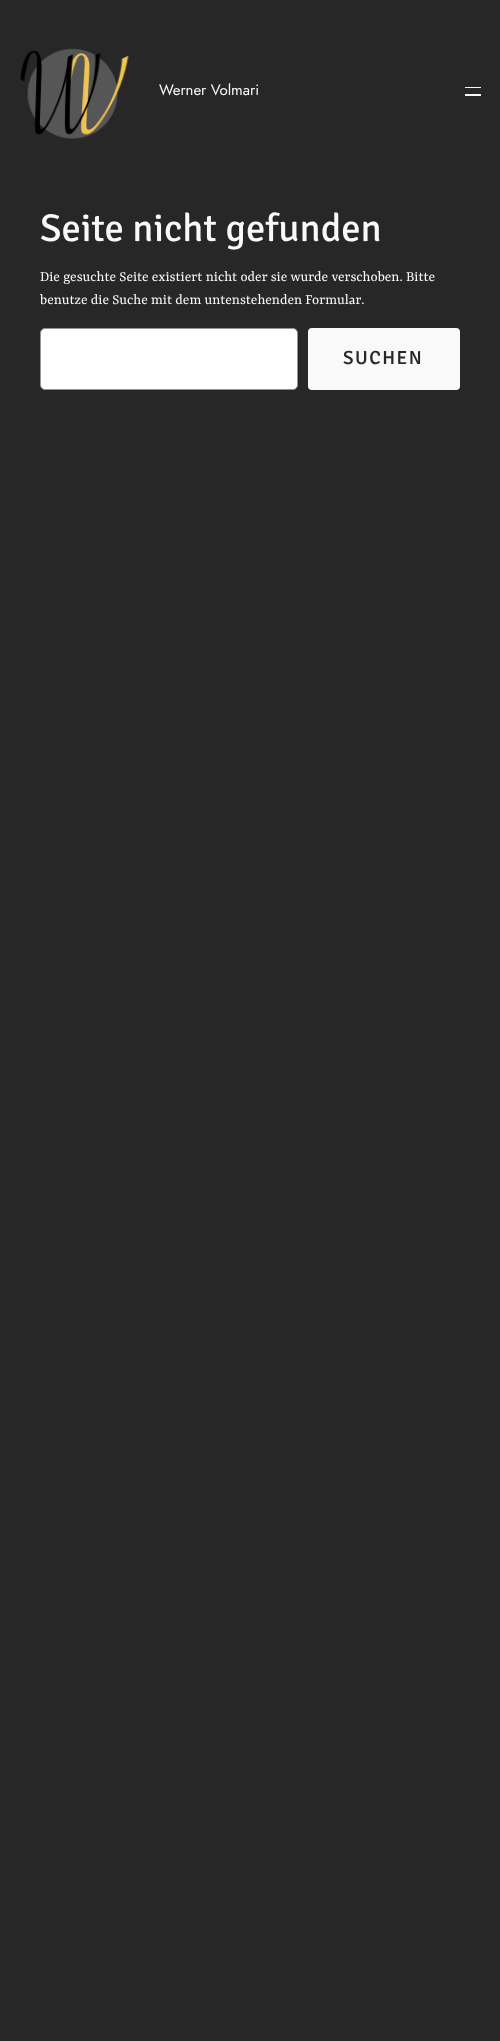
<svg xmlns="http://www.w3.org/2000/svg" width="500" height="2041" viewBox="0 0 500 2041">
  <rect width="100%" height="100%" fill="#272727"/>
  <image x="20" y="48" width="109" height="91" href="img/1.png"/>
  <path d="M465 87h16v1H465z" fill="#f9f9f9"/>
  <path d="M465 94h16v2H465z" fill="#f9f9f9"/>
  <rect x="40.5" y="328.5" width="257" height="61" rx="4.5" fill="#fff" stroke="#949494"/>
  <rect x="308" y="328" width="152" height="62" rx="4" fill="#f9f9f9"/>
  <text x="159" y="95" font-family="Jost" font-size="15" fill="#f9f9f9">Werner Volmari</text>
  <text x="40" y="241" font-family="Signika" font-size="38.75" fill="#f9f9f9">Seite nicht gefunden</text>
  <g font-family="Yrsa" font-size="15.25" fill="#f9f9f9">
    <text x="40" y="281">Die gesuchte Seite existiert nicht oder sie wurde verschoben. Bitte</text>
    <text x="40" y="304">benutze die Suche mit dem untenstehenden Formular.</text>
  </g>
  <text x="343" y="364" font-family="Signika" font-size="19" font-weight="500" letter-spacing="1.5" fill="#272727">SUCHEN</text>
</svg>
